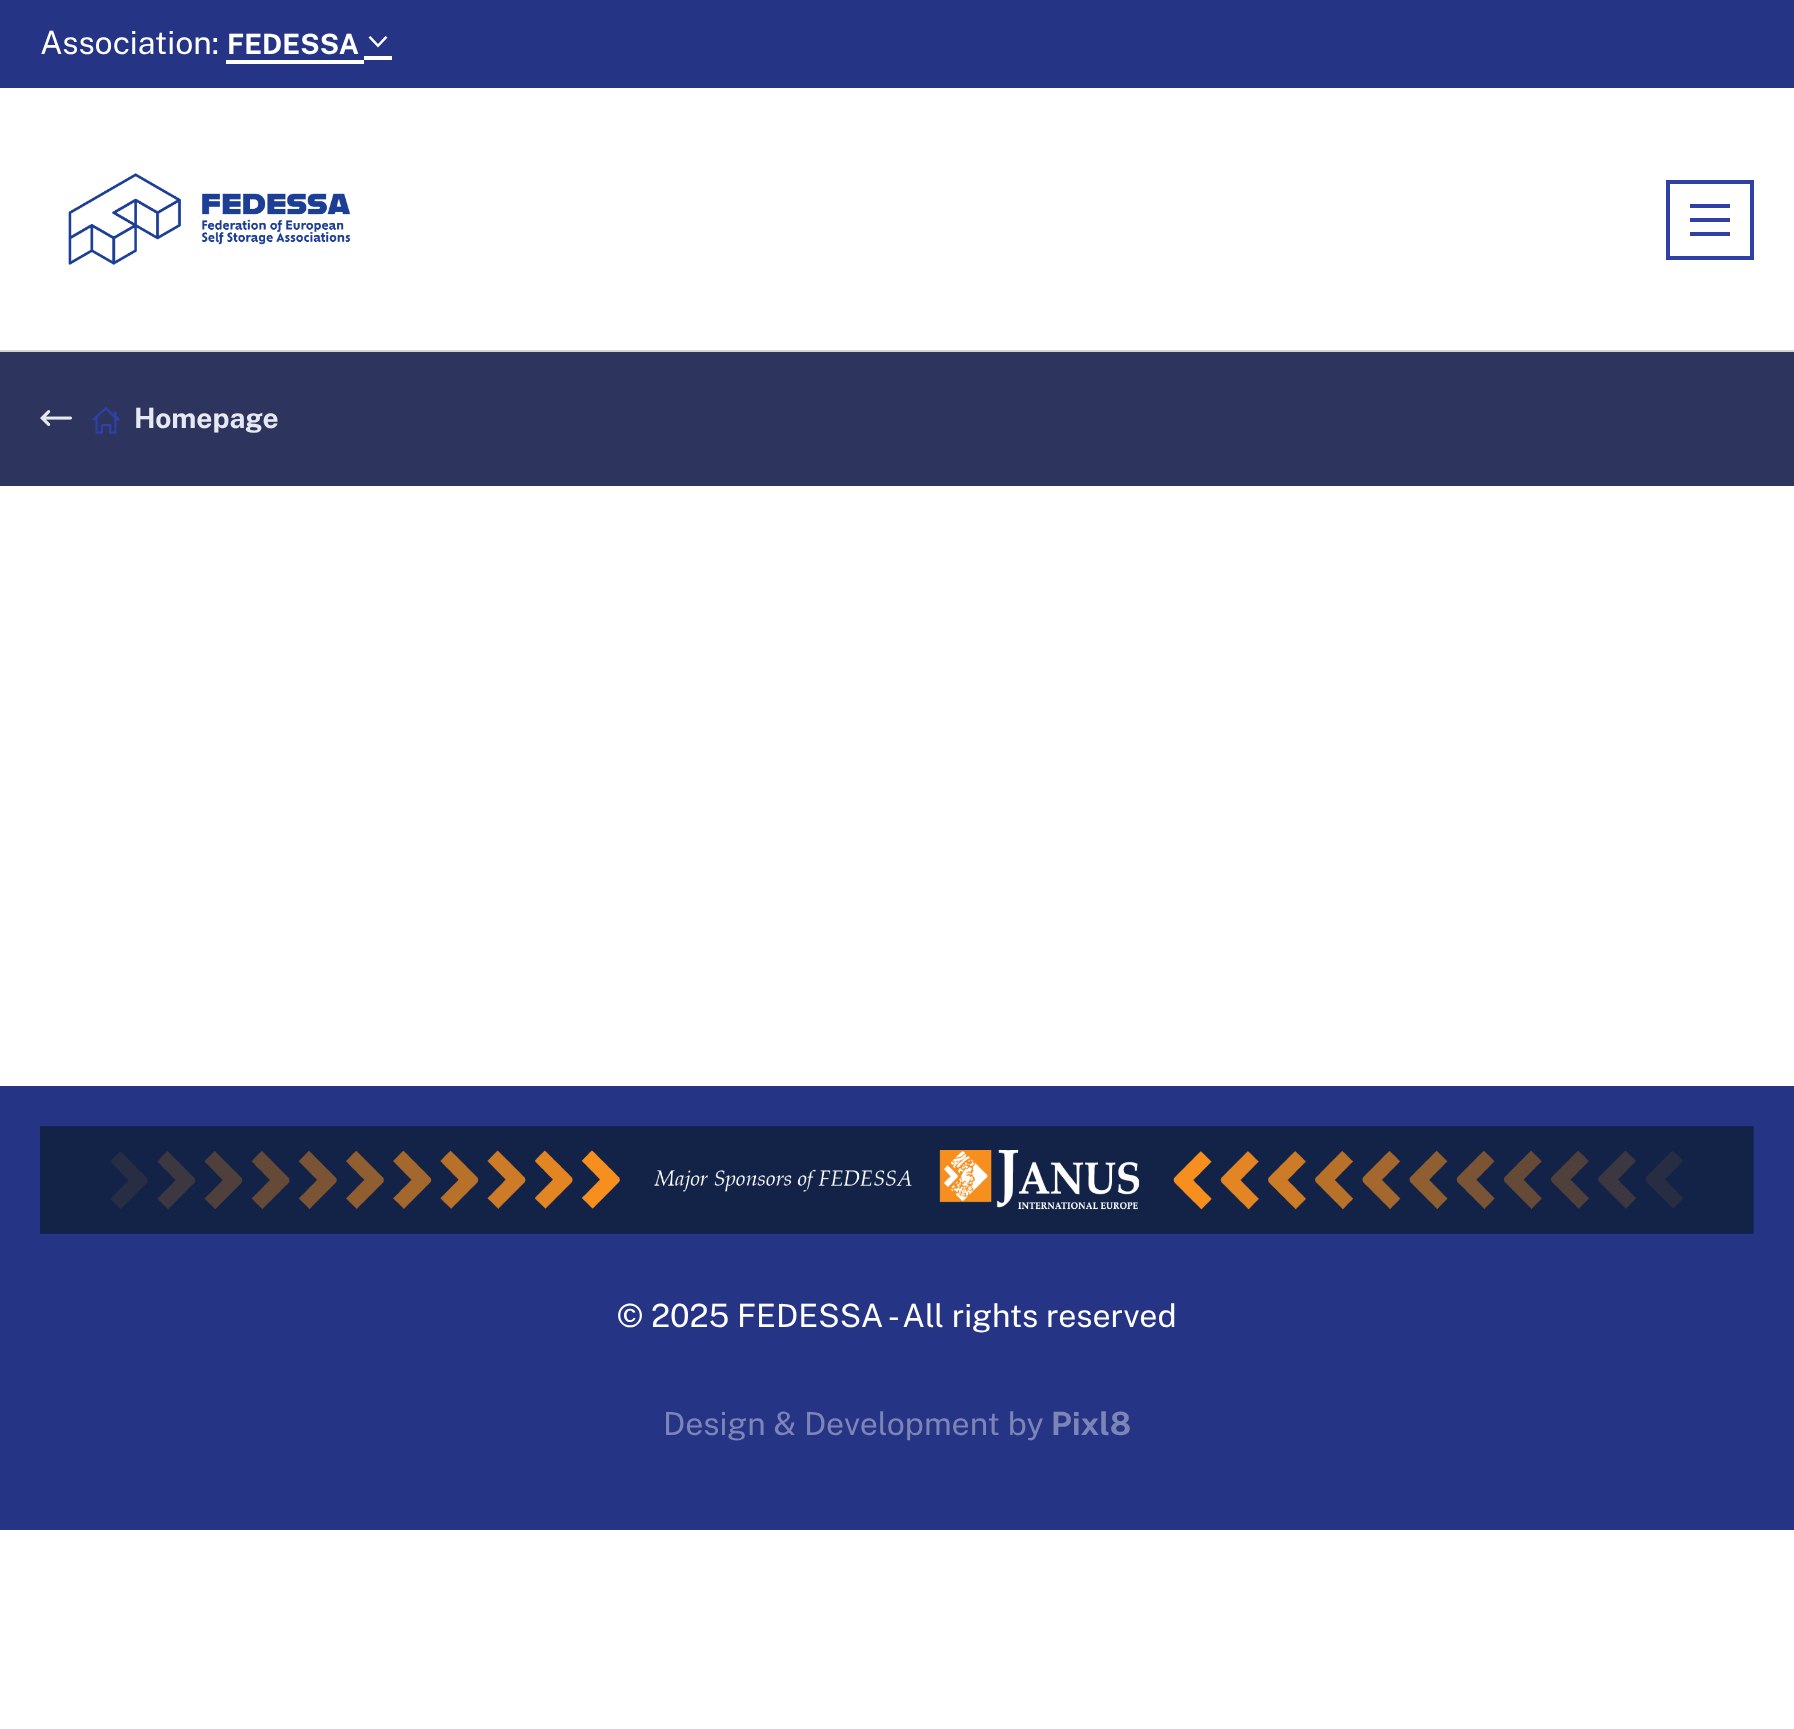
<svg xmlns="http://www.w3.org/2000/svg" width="1794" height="1729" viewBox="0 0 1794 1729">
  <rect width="100%" height="100%" fill="#fff"/>
  <path d="M0 350h1794v2H0z" fill="#d2d3d5"/>
  <path d="M0 0h1794v88H0z" fill="#263486"/>
  <path d="M226 60h138v4H226z" fill="#fff"/>
  <path d="M364 56h28v4H364z" fill="#fff"/>
  <path d="M387.5 37.5L385.5 36L378 44L370.5 36L368.5 37.5L378 47.5Z" fill="#fff"/>
  <image x="68" y="173" width="283" height="92" href="img/1.png"/>
  <path d="M1668 182h84v76H1668z" fill="none" stroke="#2f41a7" stroke-width="4"/>
  <path d="M1690 218h40v4H1690z" fill="#2f41a7"/>
  <path d="M1690 204h40v4H1690z" fill="#2f41a7"/>
  <path d="M1690 232h40v4H1690z" fill="#2f41a7"/>
  <path d="M0 352h1794v134H0z" fill="#2d345e"/>
  <image x="40" y="410" width="32" height="16" href="img/2.png"/>
  <image x="92" y="407" width="28" height="27" href="img/3.png"/>
  <path d="M0 1086h1794v444H0z" fill="#263486"/>
  <image x="40" y="1126" width="1714" height="108" href="img/4.png"/>
  <text x="40" y="54" font-family="Public Sans" font-size="32" fill="#fff">Association:</text>
  <text x="227" y="54" font-family="Public Sans" font-size="28" font-weight="bold" fill="#fff">FEDESSA</text>
  <text x="134" y="428" font-family="Public Sans" font-size="28" font-weight="bold" fill="#e6e9f2">Homepage</text>
  <text x="617" y="1327" font-family="Public Sans" font-size="32" fill="#fff">© 2025 FEDESSA - All rights reserved</text>
  <text x="663" y="1435" font-family="Public Sans" font-size="32" fill="#7d85b6">Design &amp; Development by</text>
  <text x="1051" y="1435" font-family="Public Sans" font-size="32" font-weight="bold" fill="#7d85b6">Pixl8</text>
</svg>
